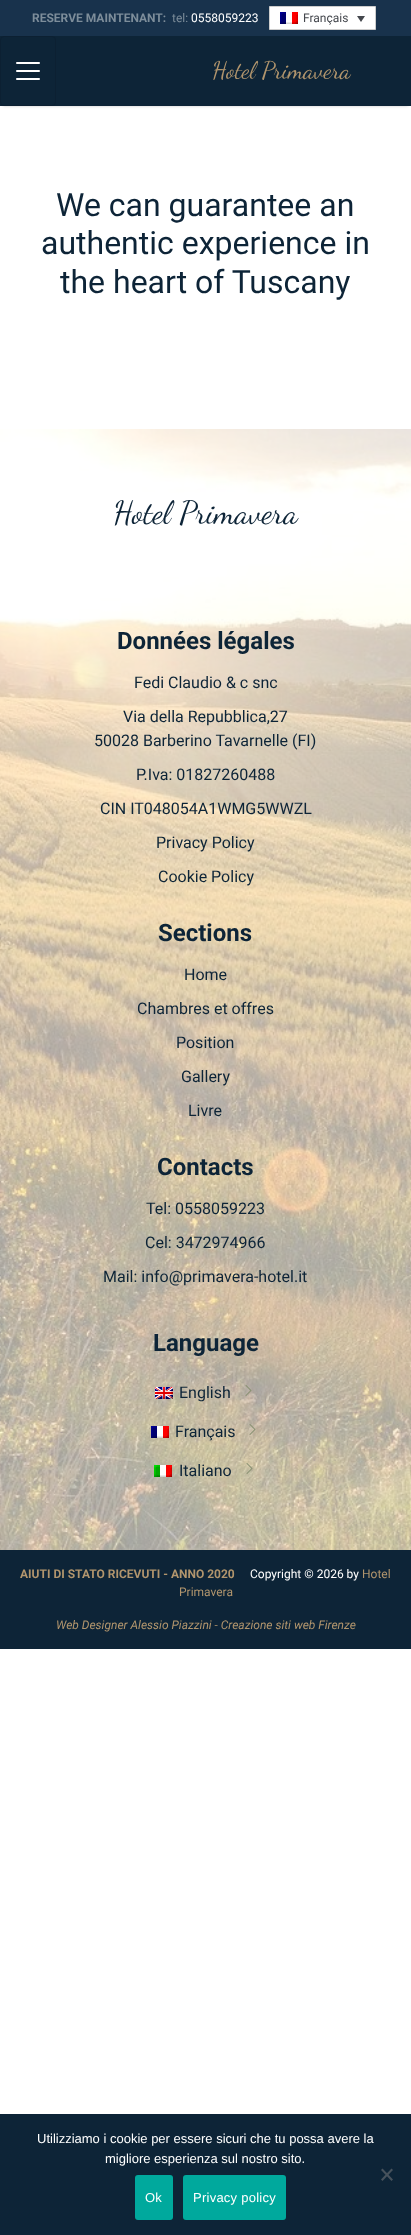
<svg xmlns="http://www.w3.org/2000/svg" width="411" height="2235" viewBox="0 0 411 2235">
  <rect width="100%" height="100%" fill="#fff"/>
  <path d="M0 0h411v36H0z" fill="#18324c"/>
  <path d="M269.5 6.5h106v23H269.5z" fill="#fff" stroke="#cdcdcd"/>
  <image x="280" y="12" width="18" height="12" href="img/1.png"/>
  <path d="M357 16H365L361 22Z" fill="#44474d"/>
  <path d="M3 42h405v64H3z" fill="#00000038" filter="blur(1.5px)"/>
  <path d="M0 36h411v70H0z" fill="#0d2437"/>
  <rect x="0.5" y="36.5" width="55" height="69" rx="3.5" fill="none" stroke="#0c2032"/>
  <image x="16" y="62" width="24" height="18" href="img/2.png"/>
  <image x="0" y="429" width="411" height="1121" href="img/3.png"/>
  <image x="155" y="1387" width="18" height="12" href="img/4.png"/>
  <image x="245" y="1385" width="7" height="11" href="img/5.png"/>
  <image x="151" y="1426" width="18" height="12" href="img/1.png"/>
  <image x="249" y="1424" width="7" height="11" href="img/6.png"/>
  <image x="154" y="1465" width="18" height="12" href="img/7.png"/>
  <image x="246" y="1463" width="7" height="11" href="img/8.png"/>
  <path d="M0 1550h411v99H0z" fill="#0d2437"/>
  <path d="M0 2114h411v121H0z" fill="#0d2437"/>
  <path d="M391.5 2168.5L393 2170L382.5 2181L381 2179.5Z" fill="#47525c"/>
  <path d="M381 2170L382.5 2168.5L393 2179.5L391.5 2181Z" fill="#47525c"/>
  <rect x="135" y="2175" width="38" height="45" rx="3" fill="#00a99d"/>
  <rect x="183" y="2175" width="103" height="45" rx="3" fill="#00a99d"/>
  <text x="32" y="22" font-family="Roboto" font-size="12" font-weight="bold" fill="#7d8d9a">RESERVE MAINTENANT:</text>
  <text x="172" y="22" font-family="Roboto" font-size="12" fill="#7d8d9a">tel:</text>
  <text x="191" y="22" font-family="Roboto" font-size="12" fill="#fff">0558059223</text>
  <text x="303" y="22" font-family="Roboto" font-size="12" fill="#44474d">Français</text>
  <text x="212" y="78" font-family="Dancing Script" font-size="24" fill="#b1956d">Hotel Primavera</text>
  <g font-family="Roboto" font-size="32" fill="#0d2437">
    <text x="56" y="216">We can guarantee an</text>
    <text x="41" y="254">authentic experience in</text>
    <text x="60" y="293">the heart of Tuscany</text>
  </g>
  <text x="113" y="523" font-family="Dancing Script" font-size="32" fill="#0d2437">Hotel Primavera</text>
  <text x="117" y="649" font-family="Roboto" font-size="24" font-weight="bold" fill="#0d2437">Données légales</text>
  <g font-family="Roboto" font-size="16" fill="#0d2437">
    <text x="134" y="688">Fedi Claudio &amp; c snc</text>
    <text x="123" y="722">Via della Repubblica,27</text>
    <text x="94" y="746">50028 Barberino Tavarnelle (FI)</text>
    <text x="136" y="780">P.Iva: 01827260488</text>
    <text x="100" y="814">CIN IT048054A1WMG5WWZL</text>
    <text x="156" y="848">Privacy Policy</text>
    <text x="158" y="882">Cookie Policy</text>
  </g>
  <text x="158" y="941" font-family="Roboto" font-size="24" font-weight="bold" fill="#0d2437">Sections</text>
  <g font-family="Roboto" font-size="16" fill="#0d2437">
    <text x="184" y="980">Home</text>
    <text x="137" y="1014">Chambres et offres</text>
    <text x="176" y="1048">Position</text>
    <text x="181" y="1082">Gallery</text>
    <text x="188" y="1116">Livre</text>
  </g>
  <text x="157" y="1175" font-family="Roboto" font-size="24" font-weight="bold" fill="#0d2437">Contacts</text>
  <g font-family="Roboto" font-size="16" fill="#0d2437">
    <text x="146" y="1214">Tel: 0558059223</text>
    <text x="145" y="1248">Cel: 3472974966</text>
    <text x="103" y="1282">Mail: info@primavera-hotel.it</text>
  </g>
  <text x="153" y="1351" font-family="Roboto" font-size="24" font-weight="bold" fill="#0d2437">Language</text>
  <g font-family="Roboto" font-size="16" fill="#0d2437">
    <text x="179" y="1398">English</text>
    <text x="175" y="1437">Français</text>
    <text x="179" y="1476">Italiano</text>
  </g>
  <text x="20" y="1578" font-family="Roboto" font-size="12" font-weight="bold" fill="#b1956d">AIUTI DI STATO RICEVUTI - ANNO 2020</text>
  <text x="250" y="1578" font-family="Roboto" font-size="12" fill="#fff">Copyright © 2026 by</text>
  <g font-family="Roboto" font-size="12" fill="#b1956d">
    <text x="362" y="1578">Hotel</text>
    <text x="179" y="1596">Primavera</text>
  </g>
  <text x="56" y="1629" font-family="Roboto" font-size="12" font-style="italic" fill="#b1956d">Web Designer Alessio Piazzini - Creazione siti web Firenze</text>
  <g font-family="Liberation Sans" font-size="13" fill="#fff">
    <text x="37" y="2143">Utilizziamo i cookie per essere sicuri che tu possa avere la</text>
    <text x="105" y="2163">migliore esperienza sul nostro sito.</text>
  </g>
  <g font-family="Liberation Sans" font-size="13" letter-spacing="0.25" fill="#fff">
    <text x="145" y="2202">Ok</text>
    <text x="193" y="2202">Privacy policy</text>
  </g>
</svg>
